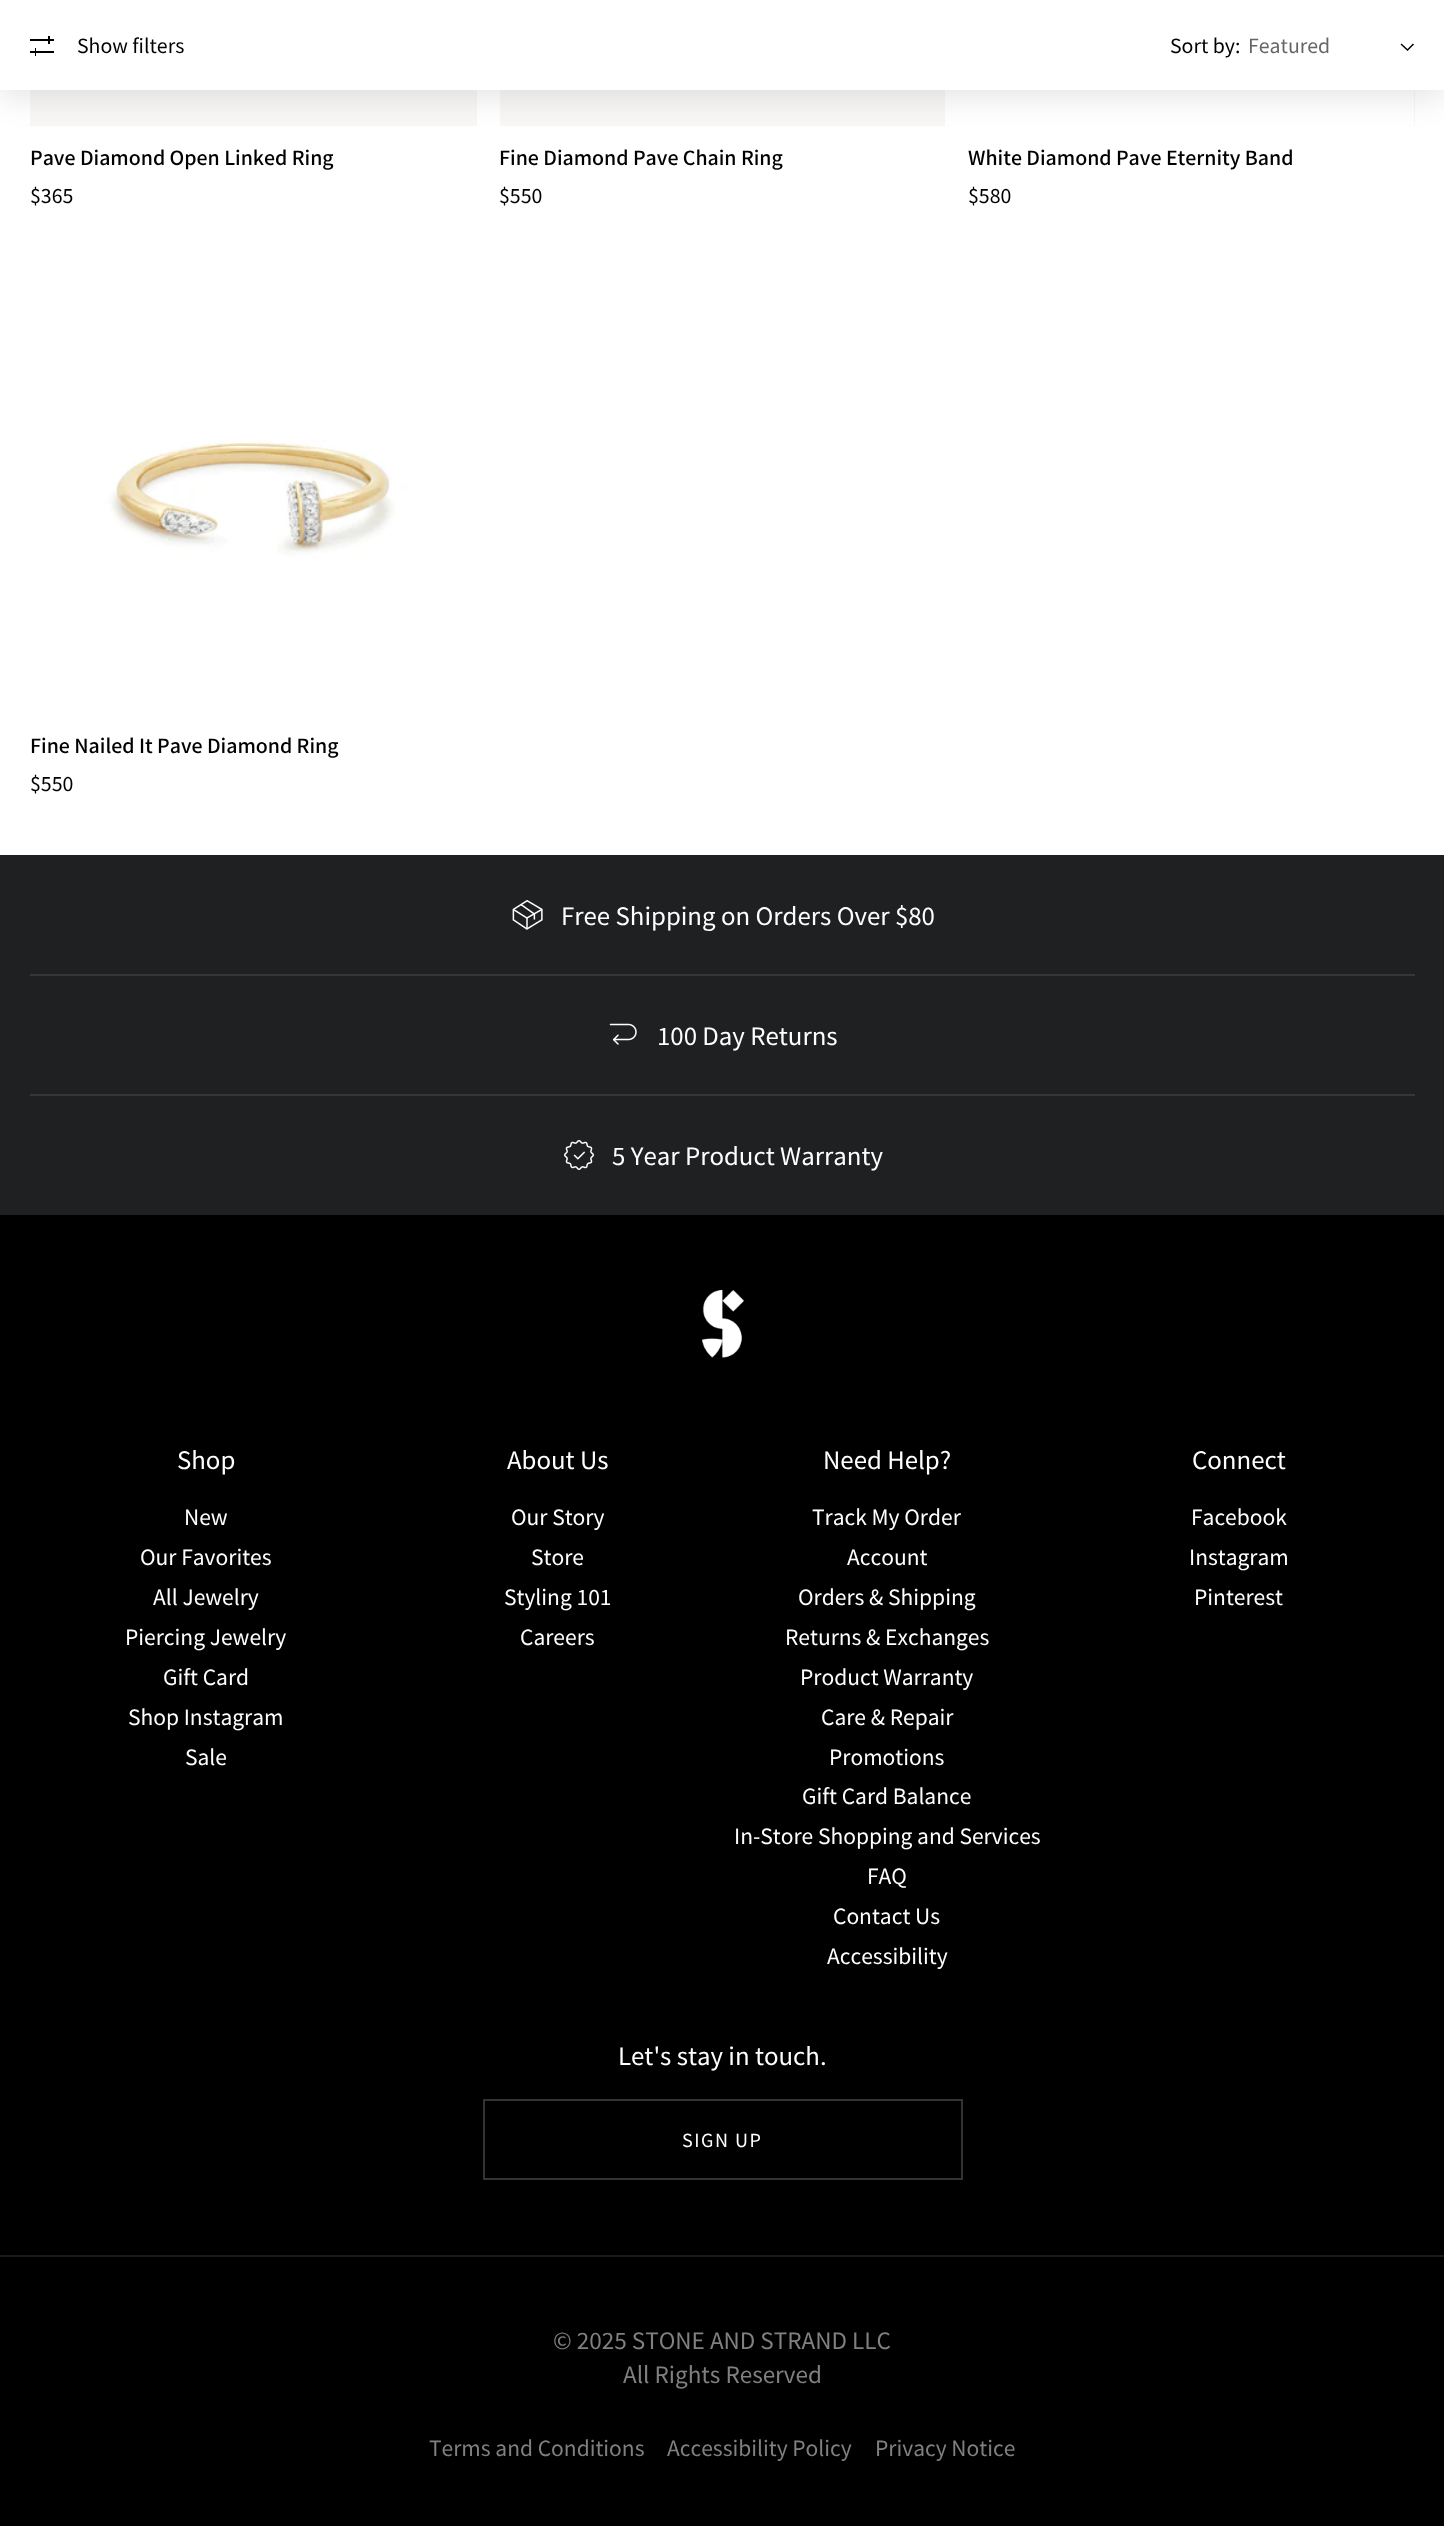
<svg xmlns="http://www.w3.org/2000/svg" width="1444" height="2526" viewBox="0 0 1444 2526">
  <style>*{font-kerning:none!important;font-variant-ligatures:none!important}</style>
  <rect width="100%" height="100%" fill="#fff"/>
  <path d="M30 90h447v36H30z" fill="#f8f7f5"/>
  <path d="M500 90h445v36H500z" fill="#f8f7f5"/>
  <path d="M1414 90h1v36H1414z" fill="#f8f7f5"/>
  <path d="M0 8h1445v90H0z" fill="#0000001a" filter="blur(15px)"/>
  <path d="M0 0h1444v90H0z" fill="#fff"/>
  <path d="M30 39h24v2H30z" fill="#000"/>
  <path d="M48 36h2v8H48z" fill="#000"/>
  <path d="M30 51h24v2H30z" fill="#000"/>
  <path d="M35 48h1v8H35z" fill="#000"/>
  <path d="M1413.5 44L1407.5 50L1401 44" fill="none" stroke="#000" stroke-width="1.5"/>
  <image x="30" y="267" width="447" height="447" href="img/1.png"/>
  <path d="M0 1215h1444v1311H0z" fill="#000"/>
  <path d="M0 855h1444v360H0z" fill="#1f2022"/>
  <image x="512" y="899" width="31" height="31" href="img/2.png"/>
  <path d="M30 974h1385v2H30z" fill="#353638"/>
  <image x="609" y="1023" width="28" height="22" href="img/3.png"/>
  <path d="M30 1094h1385v2H30z" fill="#353638"/>
  <image x="564" y="1140" width="30" height="30" href="img/4.png"/>
  <image x="702" y="1290" width="42" height="68" href="img/5.png"/>
  <path d="M484 2100h478v79H484z" fill="none" stroke="#333" stroke-width="2"/>
  <path d="M0 2255h1444v2H0z" fill="#1a1a1a"/>
  <g font-family="Noto Sans TC" font-size="19.5" fill="#000">
    <text x="77" y="53">Show filters</text>
    <text x="1170" y="53">Sort by:</text>
  </g>
  <text x="1248" y="53" font-family="Noto Sans TC" font-size="19.5" fill="#666">Featured</text>
  <text x="30" y="165" font-family="Noto Sans TC" font-size="19.5" font-weight="500" fill="#000">Pave Diamond Open Linked Ring</text>
  <text x="30" y="203" font-family="Noto Sans TC" font-size="19.5" fill="#000">$365</text>
  <text x="499" y="165" font-family="Noto Sans TC" font-size="19.5" font-weight="500" fill="#000">Fine Diamond Pave Chain Ring</text>
  <text x="499" y="203" font-family="Noto Sans TC" font-size="19.5" fill="#000">$550</text>
  <text x="968" y="165" font-family="Noto Sans TC" font-size="19.5" font-weight="500" fill="#000">White Diamond Pave Eternity Band</text>
  <text x="968" y="203" font-family="Noto Sans TC" font-size="19.5" fill="#000">$580</text>
  <text x="30" y="753" font-family="Noto Sans TC" font-size="19.5" font-weight="500" fill="#000">Fine Nailed It Pave Diamond Ring</text>
  <text x="30" y="791" font-family="Noto Sans TC" font-size="19.5" fill="#000">$550</text>
  <g font-family="Noto Sans TC" font-size="24" fill="#fff">
    <text x="561" y="925">Free Shipping on Orders Over $80</text>
    <text x="657" y="1045">100 Day Returns</text>
    <text x="612" y="1165">5 Year Product Warranty</text>
    <text x="177" y="1469">Shop</text>
  </g>
  <g font-family="Noto Sans TC" font-size="21" fill="#fff">
    <text x="184" y="1525">New</text>
    <text x="140" y="1565">Our Favorites</text>
    <text x="153" y="1605">All Jewelry</text>
    <text x="125" y="1645">Piercing Jewelry</text>
    <text x="163" y="1685">Gift Card</text>
    <text x="128" y="1725">Shop Instagram</text>
    <text x="185" y="1765">Sale</text>
  </g>
  <text x="507" y="1469" font-family="Noto Sans TC" font-size="24" fill="#fff">About Us</text>
  <g font-family="Noto Sans TC" font-size="21" fill="#fff">
    <text x="511" y="1525">Our Story</text>
    <text x="531" y="1565">Store</text>
    <text x="504" y="1605">Styling 101</text>
    <text x="520" y="1645">Careers</text>
  </g>
  <text x="823" y="1469" font-family="Noto Sans TC" font-size="24" fill="#fff">Need Help?</text>
  <g font-family="Noto Sans TC" font-size="21" fill="#fff">
    <text x="812" y="1525">Track My Order</text>
    <text x="847" y="1565">Account</text>
    <text x="798" y="1605">Orders &amp; Shipping</text>
    <text x="785" y="1645">Returns &amp; Exchanges</text>
    <text x="800" y="1685">Product Warranty</text>
    <text x="821" y="1725">Care &amp; Repair</text>
    <text x="829" y="1765">Promotions</text>
    <text x="802" y="1804">Gift Card Balance</text>
    <text x="734" y="1844">In-Store Shopping and Services</text>
    <text x="867" y="1884">FAQ</text>
    <text x="833" y="1924">Contact Us</text>
    <text x="827" y="1964">Accessibility</text>
  </g>
  <text x="1192" y="1469" font-family="Noto Sans TC" font-size="24" fill="#fff">Connect</text>
  <g font-family="Noto Sans TC" font-size="21" fill="#fff">
    <text x="1191" y="1525">Facebook</text>
    <text x="1189" y="1565">Instagram</text>
    <text x="1194" y="1605">Pinterest</text>
  </g>
  <text x="618" y="2065" font-family="Noto Sans TC" font-size="24" fill="#fff">Let's stay in touch.</text>
  <text x="682" y="2147" font-family="Noto Sans TC" font-size="18" letter-spacing="1.5" fill="#fff">SIGN UP</text>
  <g font-family="Noto Sans TC" font-size="22.5" fill="#808080">
    <text x="553" y="2349">© 2025 STONE AND STRAND LLC</text>
    <text x="623" y="2383">All Rights Reserved</text>
  </g>
  <g font-family="Noto Sans TC" font-size="21" fill="#808080">
    <text x="429" y="2456">Terms and Conditions</text>
    <text x="667" y="2456">Accessibility Policy</text>
    <text x="875" y="2456">Privacy Notice</text>
  </g>
</svg>
